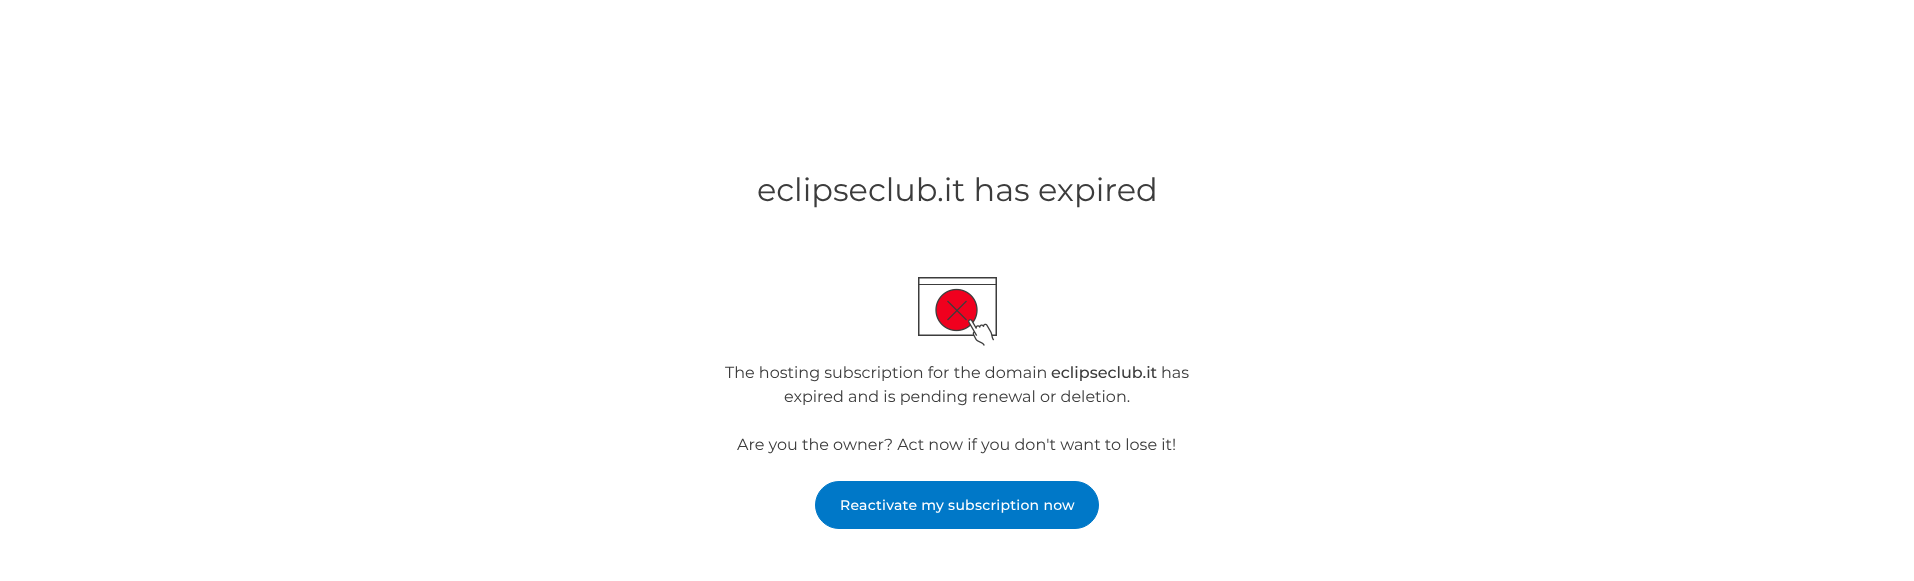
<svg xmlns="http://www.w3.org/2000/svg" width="1914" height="581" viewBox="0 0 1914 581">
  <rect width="100%" height="100%" fill="#fff"/>
  <image x="918" y="277" width="79" height="69" href="img/1.png"/>
  <rect x="815.5" y="481.5" width="283" height="47" rx="23.5" fill="#0078c8" stroke="#0078c8"/>
  <text x="757" y="201" font-family="Montserrat" font-size="32" fill="#3c3c3c">eclipseclub.it has expired</text>
  <text x="725" y="378" font-family="Montserrat" font-size="16" fill="#3c3c3c">The hosting subscription for the domain</text>
  <text x="1051" y="378" font-family="Montserrat" font-size="16" font-weight="500" fill="#3c3c3c">eclipseclub.it</text>
  <g font-family="Montserrat" font-size="16" fill="#3c3c3c">
    <text x="1161" y="378">has</text>
    <text x="784" y="402">expired and is pending renewal or deletion.</text>
    <text x="737" y="450">Are you the owner? Act now if you don't want to lose it!</text>
  </g>
  <text x="840" y="510" font-family="Montserrat" font-size="14" font-weight="500" letter-spacing="0.25" fill="#fff">Reactivate my subscription now</text>
</svg>
